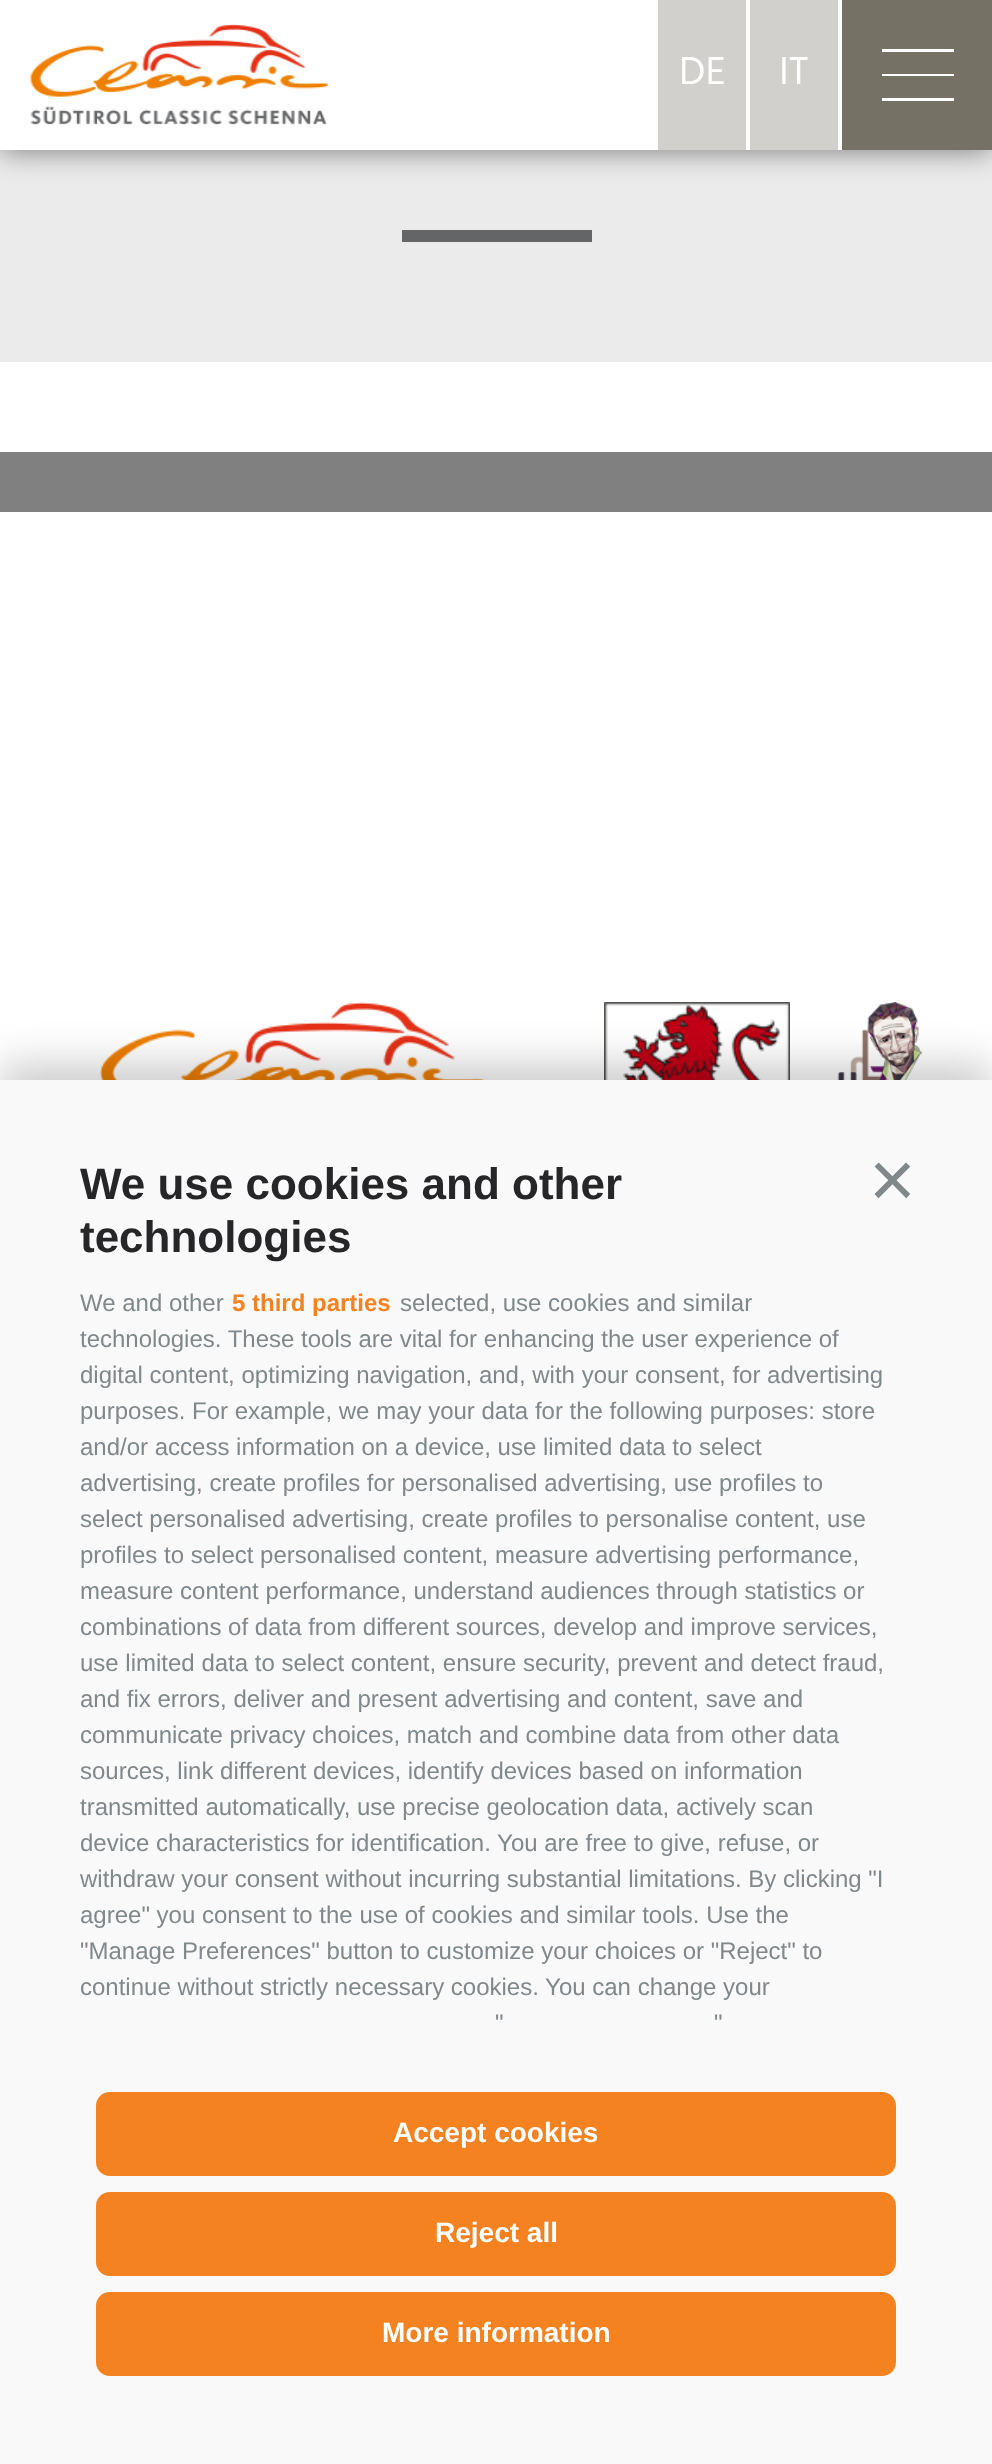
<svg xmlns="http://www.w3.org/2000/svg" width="992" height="2464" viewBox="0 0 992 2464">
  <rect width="100%" height="100%" fill="#ebebeb"/>
  <path d="M0 0h992v150H0z" fill="#00000080" filter="blur(15px)"/>
  <path d="M0 0h842v150H0z" fill="#fff"/>
  <image x="29" y="24" width="299" height="101" href="img/1.png"/>
  <path d="M842 0h150v150H842z" fill="#757165"/>
  <path d="M882 52V49H954V52ZM882 76V74H954V76ZM882 101V98H954V101Z" fill="#fff"/>
  <path d="M658 0h88v150H658z" fill="#d1d0cc"/>
  <path d="M750 0h88v150H750z" fill="#d1d0cc"/>
  <path d="M402 230h190v12H402z" fill="#646567"/>
  <path d="M0 362h992v718H0z" fill="#fff"/>
  <image x="100" y="1002" width="384" height="78" href="img/2.png"/>
  <image x="604" y="1002" width="186" height="78" href="img/3.png"/>
  <image x="837" y="1002" width="85" height="78" href="img/4.png"/>
  <path d="M0 452h992v60H0z" fill="#808080"/>
  <path d="M0 1064h992v1384H0z" fill="#00000033" filter="blur(20px)"/>
  <path d="M0 1080h992v1384H0z" fill="#f9f9f9"/>
  <rect x="96" y="2092" width="800" height="84" rx="14" fill="#f58221"/>
  <rect x="96" y="2192" width="800" height="84" rx="14" fill="#f58221"/>
  <rect x="96" y="2292" width="800" height="84" rx="14" fill="#f58221"/>
  <g font-family="Hind" font-size="40" fill="#fff">
    <text x="679" y="84">DE</text>
    <text x="779" y="84">IT</text>
  </g>
  <g font-family="Liberation Sans" font-size="44" font-weight="bold" fill="#262628">
    <text x="80" y="1199">We use cookies and other</text>
    <text x="80" y="1252">technologies</text>
  </g>
  <text x="869" y="1207" font-family="Liberation Sans" font-size="80" fill="#80888c">×</text>
  <text x="80" y="1311" font-family="Liberation Sans" font-size="24" fill="#80888c">We and other</text>
  <text x="232" y="1311" font-family="Liberation Sans" font-size="24" font-weight="bold" fill="#f58221">5 third parties</text>
  <g font-family="Liberation Sans" font-size="24" fill="#80888c">
    <text x="400" y="1311">selected, use cookies and similar</text>
    <text x="80" y="1347">technologies. These tools are vital for enhancing the user experience of</text>
    <text x="80" y="1383">digital content, optimizing navigation, and, with your consent, for advertising</text>
    <text x="80" y="1419">purposes. For example, we may your data for the following purposes: store</text>
    <text x="80" y="1455">and/or access information on a device, use limited data to select</text>
    <text x="80" y="1491">advertising, create profiles for personalised advertising, use profiles to</text>
    <text x="80" y="1527">select personalised advertising, create profiles to personalise content, use</text>
    <text x="80" y="1563">profiles to select personalised content, measure advertising performance,</text>
    <text x="80" y="1599">measure content performance, understand audiences through statistics or</text>
    <text x="80" y="1635">combinations of data from different sources, develop and improve services,</text>
    <text x="80" y="1671">use limited data to select content, ensure security, prevent and detect fraud,</text>
    <text x="80" y="1707">and fix errors, deliver and present advertising and content, save and</text>
    <text x="80" y="1743">communicate privacy choices, match and combine data from other data</text>
    <text x="80" y="1779">sources, link different devices, identify devices based on information</text>
    <text x="80" y="1815">transmitted automatically, use precise geolocation data, actively scan</text>
    <text x="80" y="1851">device characteristics for identification. You are free to give, refuse, or</text>
    <text x="80" y="1887">withdraw your consent without incurring substantial limitations. By clicking "I</text>
    <text x="80" y="1923">agree" you consent to the use of cookies and similar tools. Use the</text>
    <text x="80" y="1959">"Manage Preferences" button to customize your choices or "Reject" to</text>
    <text x="80" y="1995">continue without strictly necessary cookies. You can change your</text>
    <text x="495" y="2031">"</text>
    <text x="714" y="2031">"</text>
  </g>
  <g font-family="Liberation Sans" font-size="28" font-weight="bold" fill="#fff">
    <text x="393" y="2142">Accept cookies</text>
    <text x="435" y="2242">Reject all</text>
    <text x="382" y="2342">More information</text>
  </g>
</svg>
